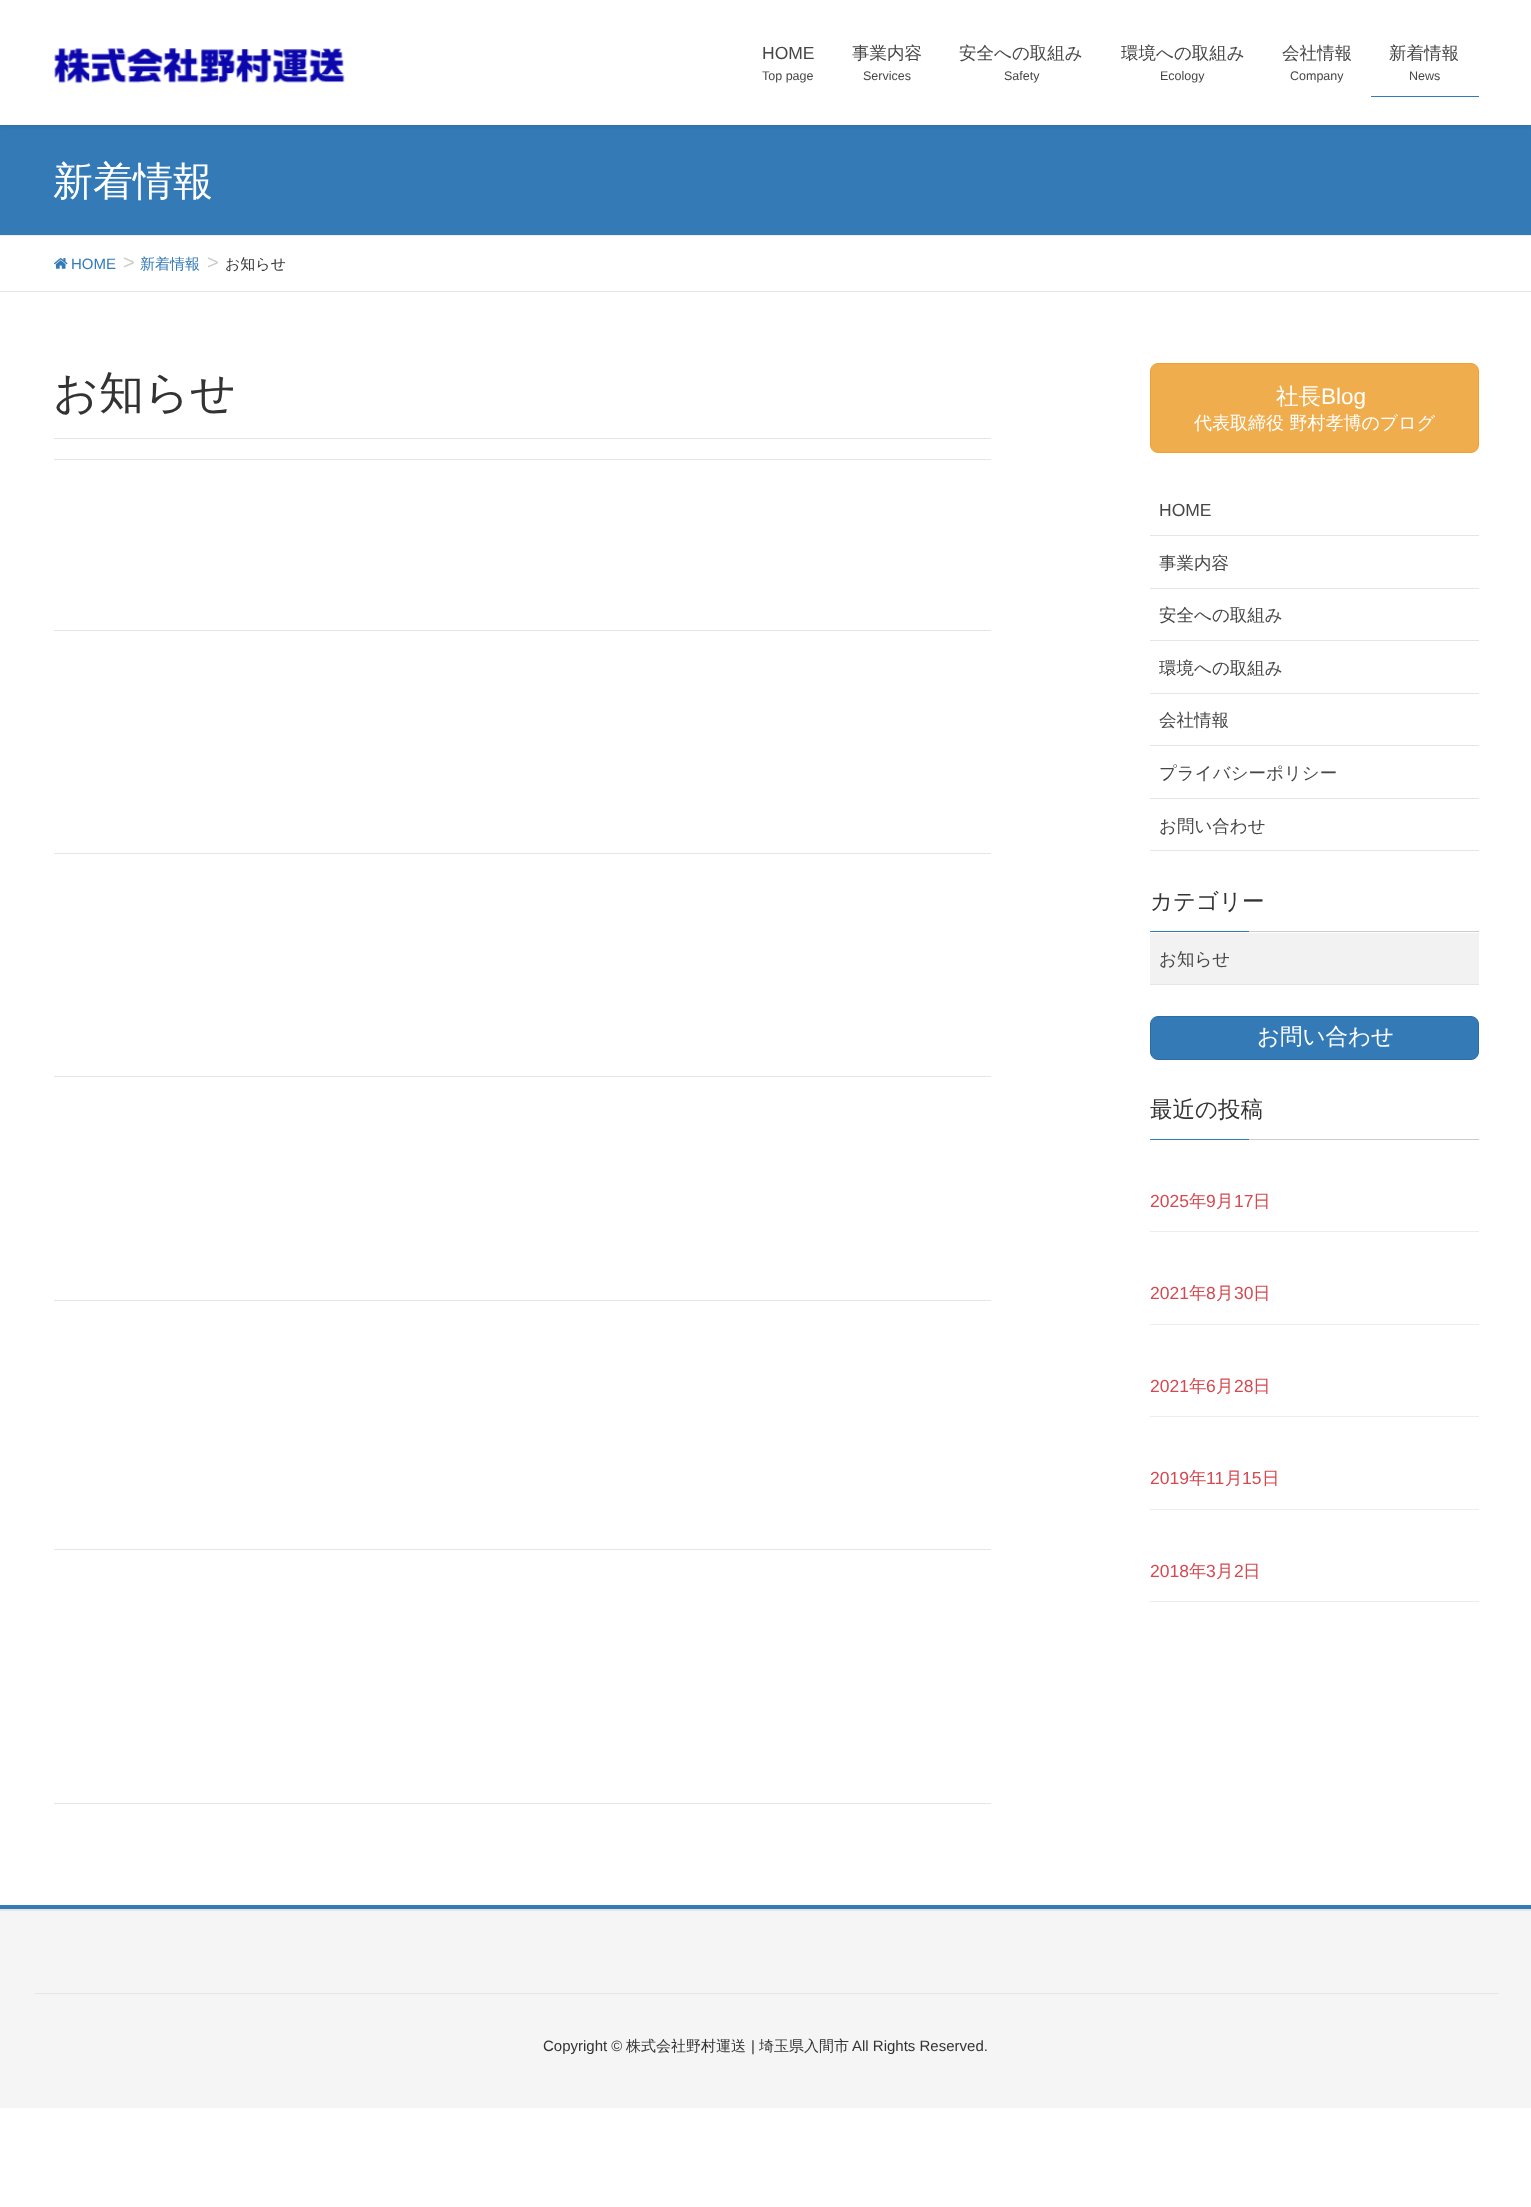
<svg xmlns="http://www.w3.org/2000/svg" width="1531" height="2207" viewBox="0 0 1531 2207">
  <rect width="100%" height="100%" fill="#fff"/>
  <path d="M0 125h1531v110H0z" fill="#337ab7"/>
  <path d="M0 1h1531v125H0z" fill="#0000001a" filter="blur(2px)"/>
  <path d="M0 0h1531v125H0z" fill="#fff"/>
  <image x="54" y="48" width="291" height="36" href="img/1.png"/>
  <path d="M1371 96h108v1H1371z" fill="#337ab7"/>
  <path d="M0 235h1531v1H0z" fill="#eee"/>
  <path d="M0 291h1531v1H0z" fill="#e5e5e5"/>
  <image x="54" y="258" width="14" height="11" href="img/2.png"/>
  <path d="M54 438h937v1H54z" fill="#e5e5e5"/>
  <path d="M54 459h937v1H54z" fill="#e5e5e5"/>
  <path d="M54 630h937v1H54z" fill="#e5e5e5"/>
  <path d="M54 853h937v1H54z" fill="#e5e5e5"/>
  <path d="M54 1076h937v1H54z" fill="#e5e5e5"/>
  <path d="M54 1300h937v1H54z" fill="#e5e5e5"/>
  <path d="M54 1549h937v1H54z" fill="#e5e5e5"/>
  <path d="M54 1803h937v1H54z" fill="#e5e5e5"/>
  <rect x="1150.5" y="363.5" width="328" height="89" rx="7.5" fill="#f0ad4e" stroke="#eea236"/>
  <path d="M1150 535h329v1H1150z" fill="#e5e5e5"/>
  <path d="M1150 588h329v1H1150z" fill="#e5e5e5"/>
  <path d="M1150 640h329v1H1150z" fill="#e5e5e5"/>
  <path d="M1150 693h329v1H1150z" fill="#e5e5e5"/>
  <path d="M1150 745h329v1H1150z" fill="#e5e5e5"/>
  <path d="M1150 798h329v1H1150z" fill="#e5e5e5"/>
  <path d="M1150 850h329v1H1150z" fill="#e5e5e5"/>
  <path d="M1249 931h230v1H1249z" fill="#ccc"/>
  <path d="M1150 931h99v1H1150z" fill="#337ab7"/>
  <path d="M1150 933h329v51H1150z" fill="#f2f2f2"/>
  <path d="M1150 984h329v1H1150z" fill="#e5e5e5"/>
  <rect x="1150.5" y="1016.5" width="328" height="43" rx="7.5" fill="#337ab7" stroke="#2e6da4"/>
  <path d="M1249 1139h230v1H1249z" fill="#ccc"/>
  <path d="M1150 1139h99v1H1150z" fill="#337ab7"/>
  <path d="M1150 1231h329v1H1150z" fill="#ededed"/>
  <path d="M1150 1324h329v1H1150z" fill="#ededed"/>
  <path d="M1150 1416h329v1H1150z" fill="#ededed"/>
  <path d="M1150 1509h329v1H1150z" fill="#ededed"/>
  <path d="M1150 1601h329v1H1150z" fill="#ededed"/>
  <path d="M0 1911h1531v197H0z" fill="#f5f5f5"/>
  <path d="M0 1905h1531v4H0z" fill="#337ab7"/>
  <path d="M0 1909h1531v2H0z" fill="#e5e5e5"/>
  <path d="M35 1993h1463v1H35z" fill="#e5e5e5"/>
  <text x="762" y="59" font-family="Liberation Sans" font-size="17.5" fill="#464646">HOME</text>
  <text x="762" y="80" font-family="Liberation Sans" font-size="12.5" fill="#464646">Top page</text>
  <text x="852" y="59" font-family="WenQuanYi Zen Hei" font-size="17.5" font-weight="500" fill="#464646">事業内容</text>
  <text x="863" y="80" font-family="Liberation Sans" font-size="12.5" fill="#464646">Services</text>
  <text x="959" y="59" font-family="WenQuanYi Zen Hei" font-size="17.5" font-weight="500" fill="#464646">安全への取組み</text>
  <text x="1004" y="80" font-family="Liberation Sans" font-size="12.5" fill="#464646">Safety</text>
  <text x="1121" y="59" font-family="WenQuanYi Zen Hei" font-size="17.5" font-weight="500" fill="#464646">環境への取組み</text>
  <text x="1160" y="80" font-family="Liberation Sans" font-size="12.5" fill="#464646">Ecology</text>
  <text x="1282" y="59" font-family="WenQuanYi Zen Hei" font-size="17.5" font-weight="500" fill="#464646">会社情報</text>
  <text x="1290" y="80" font-family="Liberation Sans" font-size="12.5" fill="#464646">Company</text>
  <text x="1389" y="59" font-family="WenQuanYi Zen Hei" font-size="17.5" font-weight="500" fill="#464646">新着情報</text>
  <text x="1409" y="80" font-family="Liberation Sans" font-size="12.5" fill="#464646">News</text>
  <text x="53" y="195" font-family="WenQuanYi Zen Hei" font-size="40" font-weight="500" fill="#fff">新着情報</text>
  <text x="71" y="269" font-family="Liberation Sans" font-size="15" fill="#337ab7">HOME</text>
  <text x="123" y="269" font-family="Liberation Sans" font-size="20" fill="#ccc">&gt;</text>
  <text x="140" y="269" font-family="WenQuanYi Zen Hei" font-size="15" font-weight="500" fill="#337ab7">新着情報</text>
  <text x="207" y="269" font-family="Liberation Sans" font-size="20" fill="#ccc">&gt;</text>
  <text x="225" y="269" font-family="WenQuanYi Zen Hei" font-size="15" font-weight="500" fill="#333">お知らせ</text>
  <text x="53" y="408" font-family="WenQuanYi Zen Hei" font-size="45" font-weight="500" fill="#333">お知らせ</text>
  <text x="1276" y="404" font-family="WenQuanYi Zen Hei" font-size="22.5" font-weight="500" fill="#fff">社長</text>
  <text x="1321" y="404" font-family="Liberation Sans" font-size="22.5" fill="#fff">Blog</text>
  <text x="1194" y="429" font-family="WenQuanYi Zen Hei" font-size="18" font-weight="500" fill="#fff">代表取締役 野村孝博のブログ</text>
  <text x="1159" y="516" font-family="Liberation Sans" font-size="17.5" fill="#464646">HOME</text>
  <g font-family="WenQuanYi Zen Hei" font-size="17.5" font-weight="500" fill="#464646">
    <text x="1159" y="569">事業内容</text>
    <text x="1159" y="621">安全への取組み</text>
    <text x="1159" y="674">環境への取組み</text>
    <text x="1159" y="726">会社情報</text>
    <text x="1159" y="779">プライバシーポリシー</text>
    <text x="1159" y="832">お問い合わせ</text>
  </g>
  <text x="1150" y="909" font-family="WenQuanYi Zen Hei" font-size="22.5" font-weight="500" fill="#333">カテゴリー</text>
  <text x="1159" y="965" font-family="WenQuanYi Zen Hei" font-size="17.5" font-weight="500" fill="#464646">お知らせ</text>
  <text x="1257" y="1044" font-family="WenQuanYi Zen Hei" font-size="22.5" font-weight="500" fill="#fff">お問い合わせ</text>
  <text x="1150" y="1117" font-family="WenQuanYi Zen Hei" font-size="22.5" font-weight="500" fill="#333">最近の投稿</text>
  <text x="1150" y="1207" font-family="Liberation Sans" font-size="17.5" fill="#d44950">2025</text>
  <text x="1189" y="1207" font-family="WenQuanYi Zen Hei" font-size="17.5" font-weight="500" fill="#d44950">年</text>
  <text x="1206" y="1207" font-family="Liberation Sans" font-size="17.5" fill="#d44950">9</text>
  <text x="1216" y="1207" font-family="WenQuanYi Zen Hei" font-size="17.5" font-weight="500" fill="#d44950">月</text>
  <text x="1234" y="1207" font-family="Liberation Sans" font-size="17.5" fill="#d44950">17</text>
  <text x="1253" y="1207" font-family="WenQuanYi Zen Hei" font-size="17.5" font-weight="500" fill="#d44950">日</text>
  <text x="1150" y="1299" font-family="Liberation Sans" font-size="17.5" fill="#d44950">2021</text>
  <text x="1189" y="1299" font-family="WenQuanYi Zen Hei" font-size="17.5" font-weight="500" fill="#d44950">年</text>
  <text x="1206" y="1299" font-family="Liberation Sans" font-size="17.5" fill="#d44950">8</text>
  <text x="1216" y="1299" font-family="WenQuanYi Zen Hei" font-size="17.5" font-weight="500" fill="#d44950">月</text>
  <text x="1234" y="1299" font-family="Liberation Sans" font-size="17.5" fill="#d44950">30</text>
  <text x="1253" y="1299" font-family="WenQuanYi Zen Hei" font-size="17.5" font-weight="500" fill="#d44950">日</text>
  <text x="1150" y="1392" font-family="Liberation Sans" font-size="17.5" fill="#d44950">2021</text>
  <text x="1189" y="1392" font-family="WenQuanYi Zen Hei" font-size="17.5" font-weight="500" fill="#d44950">年</text>
  <text x="1206" y="1392" font-family="Liberation Sans" font-size="17.5" fill="#d44950">6</text>
  <text x="1216" y="1392" font-family="WenQuanYi Zen Hei" font-size="17.5" font-weight="500" fill="#d44950">月</text>
  <text x="1234" y="1392" font-family="Liberation Sans" font-size="17.5" fill="#d44950">28</text>
  <text x="1253" y="1392" font-family="WenQuanYi Zen Hei" font-size="17.5" font-weight="500" fill="#d44950">日</text>
  <text x="1150" y="1484" font-family="Liberation Sans" font-size="17.5" fill="#d44950">2019</text>
  <text x="1189" y="1484" font-family="WenQuanYi Zen Hei" font-size="17.5" font-weight="500" fill="#d44950">年</text>
  <text x="1206" y="1484" font-family="Liberation Sans" font-size="17.5" fill="#d44950">11</text>
  <text x="1225" y="1484" font-family="WenQuanYi Zen Hei" font-size="17.5" font-weight="500" fill="#d44950">月</text>
  <text x="1242" y="1484" font-family="Liberation Sans" font-size="17.5" fill="#d44950">15</text>
  <text x="1262" y="1484" font-family="WenQuanYi Zen Hei" font-size="17.5" font-weight="500" fill="#d44950">日</text>
  <text x="1150" y="1577" font-family="Liberation Sans" font-size="17.5" fill="#d44950">2018</text>
  <text x="1189" y="1577" font-family="WenQuanYi Zen Hei" font-size="17.5" font-weight="500" fill="#d44950">年</text>
  <text x="1206" y="1577" font-family="Liberation Sans" font-size="17.5" fill="#d44950">3</text>
  <text x="1216" y="1577" font-family="WenQuanYi Zen Hei" font-size="17.5" font-weight="500" fill="#d44950">月</text>
  <text x="1234" y="1577" font-family="Liberation Sans" font-size="17.5" fill="#d44950">2</text>
  <text x="1243" y="1577" font-family="WenQuanYi Zen Hei" font-size="17.5" font-weight="500" fill="#d44950">日</text>
  <text x="543" y="2051" font-family="Liberation Sans" font-size="15" fill="#333">Copyright ©</text>
  <text x="626" y="2051" font-family="WenQuanYi Zen Hei" font-size="15" font-weight="500" fill="#333">株式会社野村運送</text>
  <text x="751" y="2051" font-family="Liberation Sans" font-size="15" fill="#333">|</text>
  <text x="759" y="2051" font-family="WenQuanYi Zen Hei" font-size="15" font-weight="500" fill="#333">埼玉県入間市</text>
  <text x="852" y="2051" font-family="Liberation Sans" font-size="15" fill="#333">All Rights Reserved.</text>
</svg>
